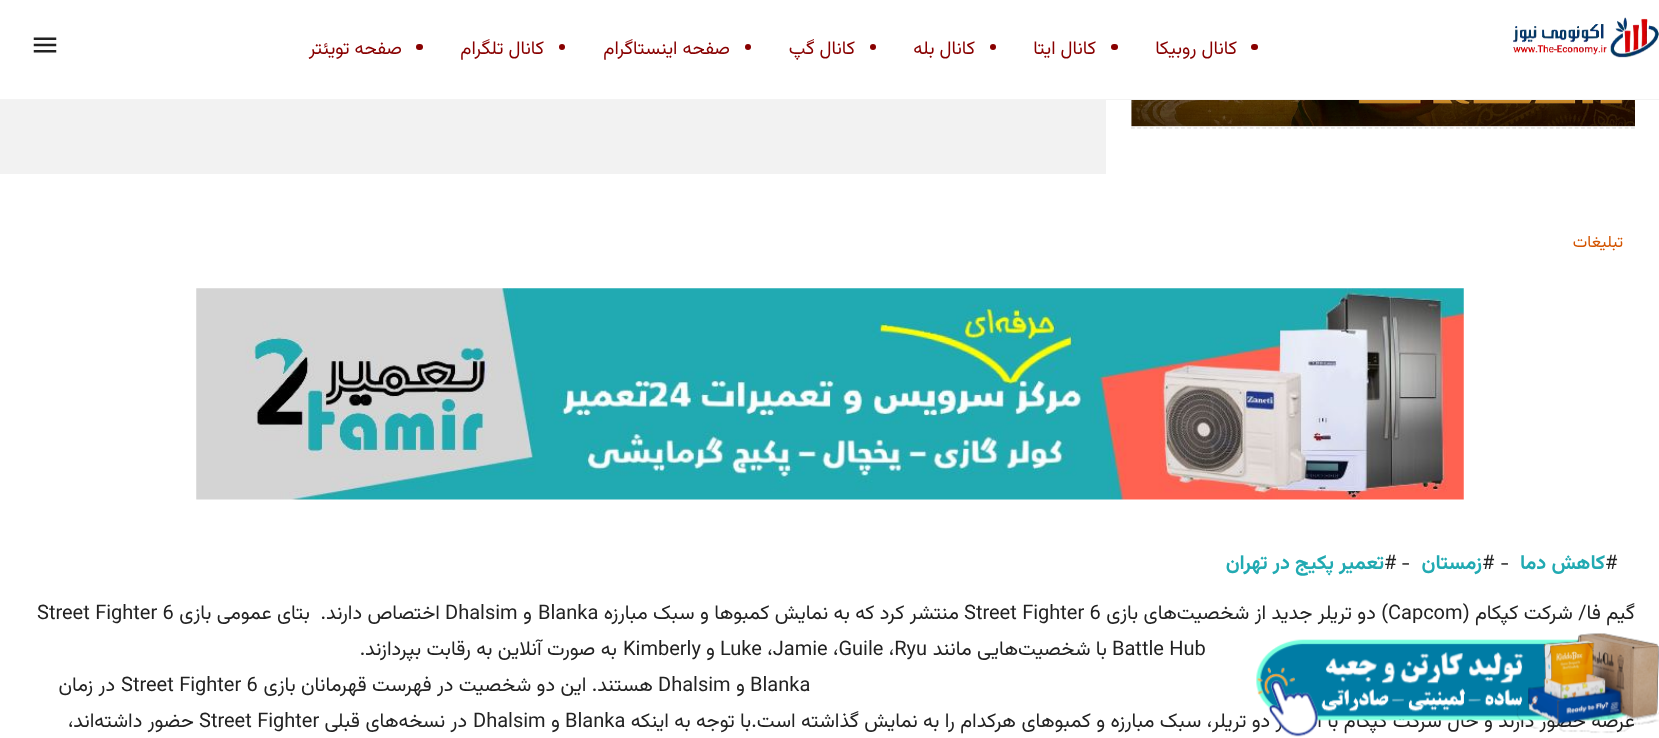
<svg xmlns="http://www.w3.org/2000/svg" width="1659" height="738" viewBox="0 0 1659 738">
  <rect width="100%" height="100%" fill="#fff"/>
  <path d="M0 99h1659v1H0z" fill="#f3f3f3"/>
  <image x="1513" y="17" width="146" height="41" href="img/1.png"/>
  <rect x="1251" y="44" width="7" height="6" rx="3" fill="#800"/>
  <rect x="1111" y="44" width="7" height="6" rx="3" fill="#800"/>
  <circle cx="993" cy="47" r="3" fill="#800"/>
  <circle cx="873" cy="47" r="3" fill="#800"/>
  <circle cx="748" cy="47" r="3" fill="#800"/>
  <circle cx="562" cy="47" r="3" fill="#800"/>
  <rect x="416" y="44" width="7" height="6" rx="3" fill="#800"/>
  <image x="33" y="37" width="24" height="16" href="img/2.png"/>
  <path d="M1131 128H1635" fill="none" stroke="#dadada" stroke-width="1.2" stroke-dasharray="3.75 2.5"/>
  <image x="1131" y="100" width="504" height="27" href="img/3.png"/>
  <path d="M0 100h1106v74H0z" fill="#f2f2f2"/>
  <image x="196" y="288" width="1268" height="212" href="img/4.png"/>
  <g font-family="Vazirmatn" font-size="18.75" direction="rtl" fill="#800">
    <text x="1237" y="54">کانال روبیکا</text>
    <text x="1096" y="54">کانال ایتا</text>
    <text x="975" y="54">کانال بله</text>
    <text x="855" y="54">کانال گپ</text>
    <text x="730" y="54">صفحه اینستاگرام</text>
    <text x="544" y="54">کانال تلگرام</text>
    <text x="402" y="54">صفحه تویئتر</text>
  </g>
  <text x="1623" y="247" font-family="Vazirmatn" font-size="16.5" direction="rtl" fill="#d35400">تبلیغات</text>
  <text x="1605" y="569" font-family="Vazirmatn" font-size="20" fill="#222">#</text>
  <text x="1605" y="569" font-family="Vazirmatn" font-size="20" font-weight="bold" direction="rtl" fill="#22aab2">کاهش دما</text>
  <g font-family="Vazirmatn" font-size="20" fill="#222">
    <text x="1500" y="569">-</text>
    <text x="1482" y="569">#</text>
  </g>
  <text x="1482" y="569" font-family="Vazirmatn" font-size="20" font-weight="bold" direction="rtl" fill="#22aab2">زمستان</text>
  <g font-family="Vazirmatn" font-size="20" fill="#222">
    <text x="1401" y="569">-</text>
    <text x="1384" y="569">#</text>
  </g>
  <text x="1384" y="569" font-family="Vazirmatn" font-size="20" font-weight="bold" direction="rtl" fill="#22aab2">تعمیر پکیج در تهران</text>
  <text x="1635" y="619" font-family="Vazirmatn" font-size="20" direction="rtl" fill="#222">گیم فا/ شرکت کپکام (</text>
  <text x="1388" y="619" font-family="Vazirmatn" font-size="20" fill="#222">Capcom</text>
  <text x="1388" y="619" font-family="Vazirmatn" font-size="20" direction="rtl" fill="#222">) دو تریلر جدید از شخصیت‌های بازی</text>
  <text x="964" y="619" font-family="Vazirmatn" font-size="20" fill="#222">Street Fighter 6</text>
  <text x="959" y="619" font-family="Vazirmatn" font-size="20" direction="rtl" fill="#222">منتشر کرد که به نمایش کمبوها و سبک مبارزه</text>
  <text x="538" y="619" font-family="Vazirmatn" font-size="20" fill="#222">Blanka</text>
  <text x="532" y="619" font-family="Vazirmatn" font-size="20" direction="rtl" fill="#222">و</text>
  <text x="445" y="619" font-family="Vazirmatn" font-size="20" fill="#222">Dhalsim</text>
  <text x="440" y="619" font-family="Vazirmatn" font-size="20" direction="rtl" fill="#222" xml:space="preserve">اختصاص دارند.  بتای عمومی بازی</text>
  <g font-family="Vazirmatn" font-size="20" fill="#222">
    <text x="37" y="619">Street Fighter 6</text>
    <text x="1112" y="655">Battle Hub</text>
  </g>
  <text x="1107" y="655" font-family="Vazirmatn" font-size="20" direction="rtl" fill="#222">با شخصیت‌هایی مانند</text>
  <text x="720" y="655" font-family="Vazirmatn" font-size="20" fill="#222">Luke ،Jamie ،Guile ،Ryu</text>
  <text x="715" y="655" font-family="Vazirmatn" font-size="20" direction="rtl" fill="#222">و</text>
  <text x="623" y="655" font-family="Vazirmatn" font-size="20" fill="#222">Kimberly</text>
  <text x="617" y="655" font-family="Vazirmatn" font-size="20" direction="rtl" fill="#222">به صورت آنلاین به رقابت بپردازند.</text>
  <text x="750" y="691" font-family="Vazirmatn" font-size="20" fill="#222">Blanka</text>
  <text x="745" y="691" font-family="Vazirmatn" font-size="20" direction="rtl" fill="#222">و</text>
  <text x="658" y="691" font-family="Vazirmatn" font-size="20" fill="#222">Dhalsim</text>
  <text x="653" y="691" font-family="Vazirmatn" font-size="20" direction="rtl" fill="#222">هستند. این دو شخصیت در فهرست قهرمانان بازی</text>
  <text x="121" y="691" font-family="Vazirmatn" font-size="20" fill="#222">Street Fighter 6</text>
  <g font-family="Vazirmatn" font-size="20" direction="rtl" fill="#222">
    <text x="115" y="691">در زمان</text>
    <text x="1635" y="727">عرضه حضور دارند و حال شرکت کپکام با انتشار دو تریلر، سبک مبارزه و کمبوهای هرکدام را به نمایش گذاشته است.با توجه به اینکه</text>
  </g>
  <text x="565" y="727" font-family="Vazirmatn" font-size="20" fill="#222">Blanka</text>
  <text x="560" y="727" font-family="Vazirmatn" font-size="20" direction="rtl" fill="#222">و</text>
  <text x="473" y="727" font-family="Vazirmatn" font-size="20" fill="#222">Dhalsim</text>
  <text x="467" y="727" font-family="Vazirmatn" font-size="20" direction="rtl" fill="#222">در نسخه‌های قبلی</text>
  <text x="199" y="727" font-family="Vazirmatn" font-size="20" fill="#222">Street Fighter</text>
  <text x="194" y="727" font-family="Vazirmatn" font-size="20" direction="rtl" fill="#222">حضور داشته‌اند،</text>
  <image x="1256" y="633" width="403" height="104" href="img/5.png"/>
</svg>
